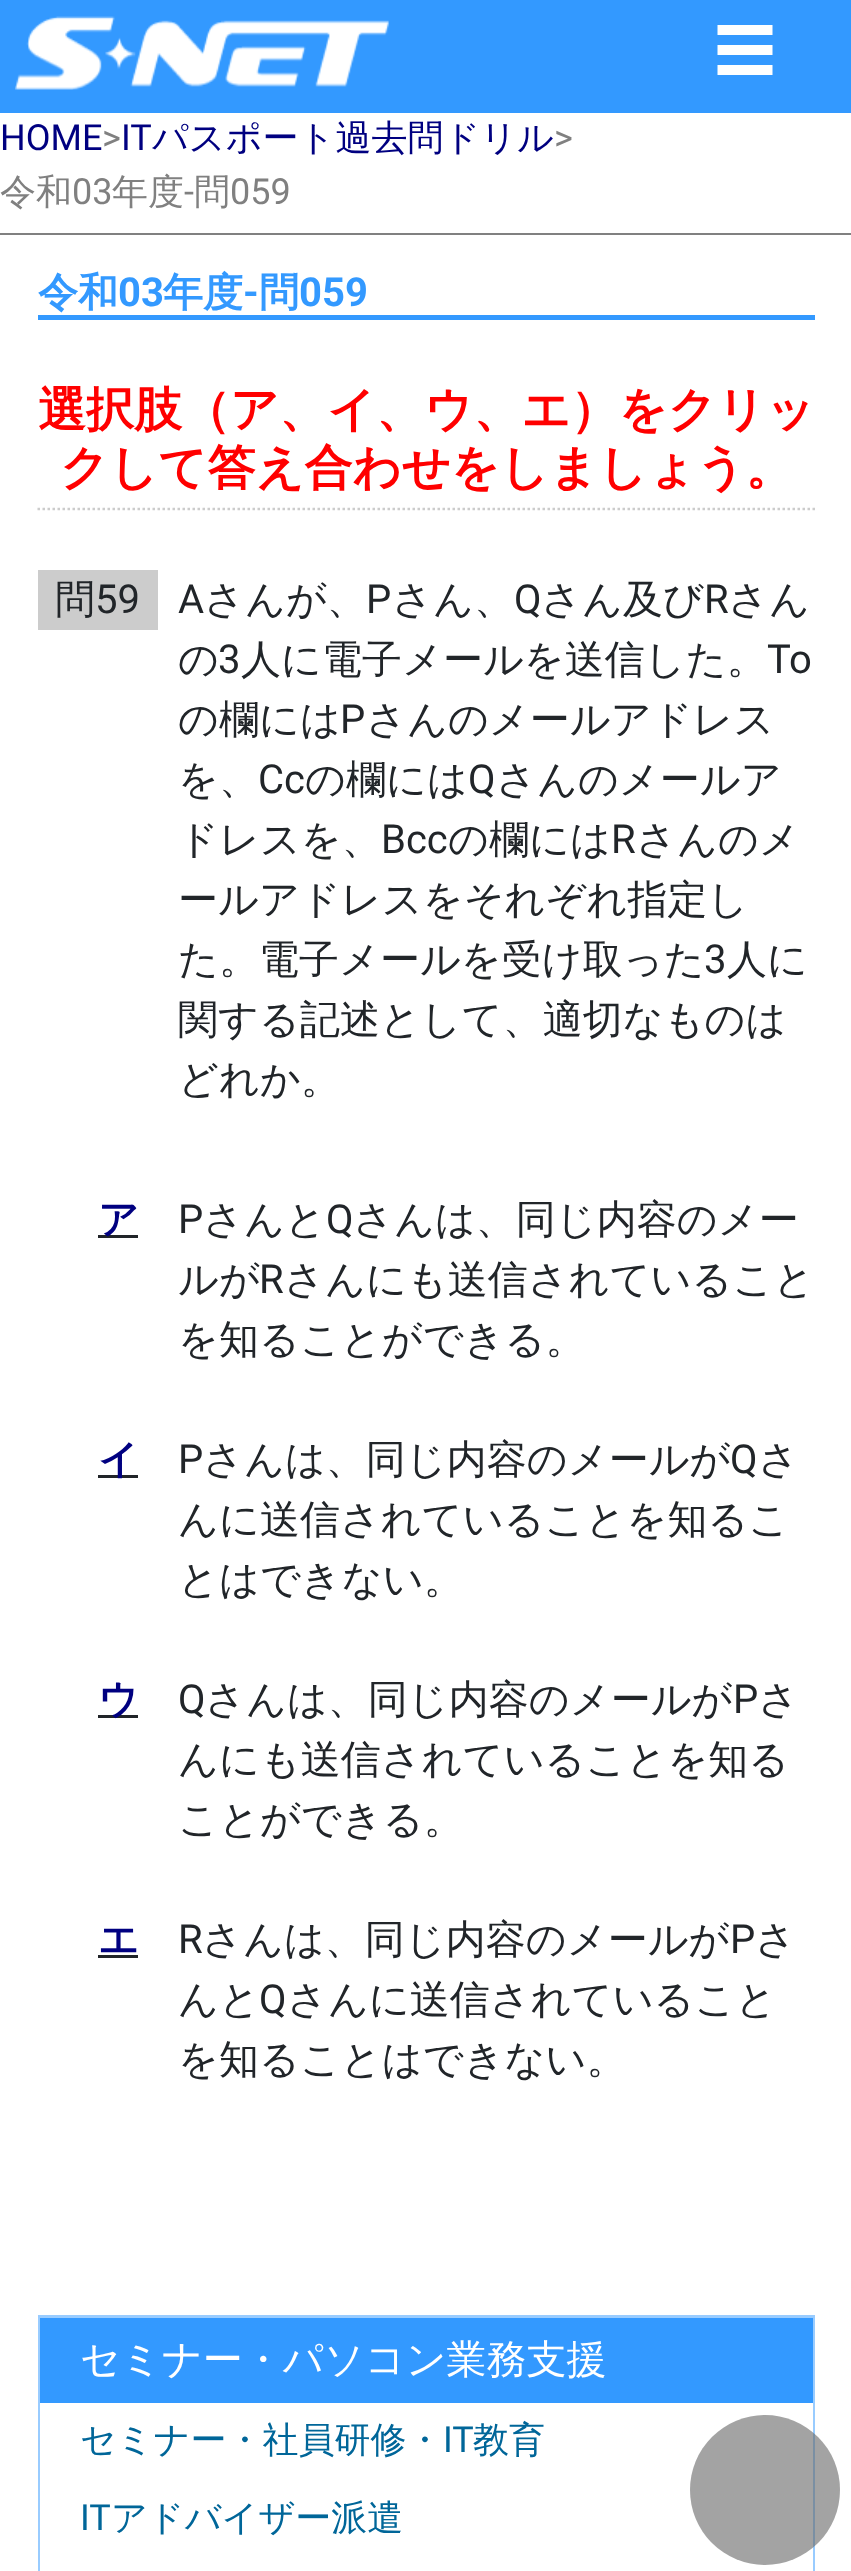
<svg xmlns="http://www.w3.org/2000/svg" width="851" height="2571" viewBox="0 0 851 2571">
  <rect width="100%" height="100%" fill="#39f"/>
  <image x="15" y="16" width="374" height="74" href="img/1.png"/>
  <path d="M717.5 30H772.5M717.5 50H772.5M717.5 70H772.5" fill="none" stroke="#fff" stroke-width="10"/>
  <path d="M0 113h851v120H0z" fill="#fff"/>
  <path d="M0 233h851v2H0z" fill="#808080"/>
  <path d="M0 235h851v2336H0z" fill="#fff"/>
  <path d="M38 315h777v5H38z" fill="#39f"/>
  <path d="M37.5 509H815" fill="none" stroke="#ccc" stroke-width="2.5" stroke-dasharray="2.5 2.5"/>
  <path d="M38 570h120v60H38z" fill="#ccc"/>
  <path d="M98 1235h40v3H98z" fill="#212529"/>
  <path d="M98 1475h40v3H98z" fill="#212529"/>
  <path d="M98 1715h40v3H98z" fill="#212529"/>
  <path d="M98 1955h40v3H98z" fill="#212529"/>
  <path d="M39.5 2316.5h774v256H39.5z" fill="none" stroke="#9cf" stroke-width="3"/>
  <path d="M40 2318h773v85H40z" fill="#39f"/>
  <path d="M40 2403h773v168H40z" fill="#fff"/>
  <circle cx="765" cy="2490" r="75" fill="#66666699"/>
  <text x="0" y="150" font-family="Roboto" font-size="36" fill="#000080">HOME</text>
  <text x="102" y="150" font-family="Roboto" font-size="36" fill="#808080">&gt;</text>
  <text x="121" y="150" font-family="Roboto" font-size="36" fill="#000080">IT</text>
  <text x="152" y="150" font-family="WenQuanYi Zen Hei" font-size="36" font-weight="500" fill="#000080">パスポート過去問ドリル</text>
  <text x="554" y="150" font-family="Roboto" font-size="36" fill="#808080">&gt;</text>
  <text x="0" y="204" font-family="WenQuanYi Zen Hei" font-size="36" font-weight="500" fill="#808080">令和</text>
  <text x="72" y="204" font-family="Roboto" font-size="36" fill="#808080">03</text>
  <text x="112" y="204" font-family="WenQuanYi Zen Hei" font-size="36" font-weight="500" fill="#808080">年度</text>
  <text x="184" y="204" font-family="Roboto" font-size="36" fill="#808080">-</text>
  <text x="194" y="204" font-family="WenQuanYi Zen Hei" font-size="36" font-weight="500" fill="#808080">問</text>
  <text x="230" y="204" font-family="Roboto" font-size="36" fill="#808080">059</text>
  <text x="38" y="306" font-family="WenQuanYi Zen Hei" font-size="40" font-weight="bold" fill="#39f">令和</text>
  <text x="118" y="306" font-family="Roboto" font-size="40" font-weight="bold" fill="#39f">03</text>
  <text x="163" y="306" font-family="WenQuanYi Zen Hei" font-size="40" font-weight="bold" fill="#39f">年度</text>
  <text x="243" y="306" font-family="Roboto" font-size="40" font-weight="bold" fill="#39f">-</text>
  <text x="259" y="306" font-family="WenQuanYi Zen Hei" font-size="40" font-weight="bold" fill="#39f">問</text>
  <text x="299" y="306" font-family="Roboto" font-size="40" font-weight="bold" fill="#39f">059</text>
  <g font-family="WenQuanYi Zen Hei" font-size="48" font-weight="bold" fill="#f00">
    <text x="38" y="426">選択肢（ア、イ、ウ、エ）をクリッ</text>
    <text x="60" y="484">クして答え合わせをしましょう。</text>
  </g>
  <text x="55" y="613" font-family="WenQuanYi Zen Hei" font-size="40" font-weight="500" fill="#212529">問</text>
  <g font-family="Roboto" font-size="40" fill="#212529">
    <text x="95" y="613">59</text>
    <text x="178" y="613">A</text>
  </g>
  <text x="204" y="613" font-family="WenQuanYi Zen Hei" font-size="40" font-weight="500" fill="#212529">さんが、</text>
  <text x="366" y="613" font-family="Roboto" font-size="40" fill="#212529">P</text>
  <text x="392" y="613" font-family="WenQuanYi Zen Hei" font-size="40" font-weight="500" fill="#212529">さん、</text>
  <text x="514" y="613" font-family="Roboto" font-size="40" fill="#212529">Q</text>
  <text x="541" y="613" font-family="WenQuanYi Zen Hei" font-size="40" font-weight="500" fill="#212529">さん及び</text>
  <text x="704" y="613" font-family="Roboto" font-size="40" fill="#212529">R</text>
  <g font-family="WenQuanYi Zen Hei" font-size="40" font-weight="500" fill="#212529">
    <text x="728" y="613">さん</text>
    <text x="178" y="673">の</text>
  </g>
  <text x="218" y="673" font-family="Roboto" font-size="40" fill="#212529">3</text>
  <text x="241" y="673" font-family="WenQuanYi Zen Hei" font-size="40" font-weight="500" fill="#212529">人に電子メールを送信した。</text>
  <text x="767" y="673" font-family="Roboto" font-size="40" fill="#212529">To</text>
  <text x="178" y="733" font-family="WenQuanYi Zen Hei" font-size="40" font-weight="500" fill="#212529">の欄には</text>
  <text x="340" y="733" font-family="Roboto" font-size="40" fill="#212529">P</text>
  <g font-family="WenQuanYi Zen Hei" font-size="40" font-weight="500" fill="#212529">
    <text x="366" y="733">さんのメールアドレス</text>
    <text x="178" y="793">を、</text>
  </g>
  <text x="258" y="793" font-family="Roboto" font-size="40" fill="#212529">Cc</text>
  <text x="305" y="793" font-family="WenQuanYi Zen Hei" font-size="40" font-weight="500" fill="#212529">の欄には</text>
  <text x="468" y="793" font-family="Roboto" font-size="40" fill="#212529">Q</text>
  <g font-family="WenQuanYi Zen Hei" font-size="40" font-weight="500" fill="#212529">
    <text x="496" y="793">さんのメールア</text>
    <text x="178" y="853">ドレスを、</text>
  </g>
  <text x="381" y="853" font-family="Roboto" font-size="40" fill="#212529">Bcc</text>
  <text x="448" y="853" font-family="WenQuanYi Zen Hei" font-size="40" font-weight="500" fill="#212529">の欄には</text>
  <text x="611" y="853" font-family="Roboto" font-size="40" fill="#212529">R</text>
  <g font-family="WenQuanYi Zen Hei" font-size="40" font-weight="500" fill="#212529">
    <text x="636" y="853">さんのメ</text>
    <text x="178" y="913">ールアドレスをそれぞれ指定し</text>
    <text x="178" y="973">た。電子メールを受け取った</text>
  </g>
  <text x="704" y="973" font-family="Roboto" font-size="40" fill="#212529">3</text>
  <g font-family="WenQuanYi Zen Hei" font-size="40" font-weight="500" fill="#212529">
    <text x="727" y="973">人に</text>
    <text x="178" y="1033">関する記述として、適切なものは</text>
    <text x="178" y="1093">どれか。</text>
  </g>
  <text x="98" y="1233" font-family="WenQuanYi Zen Hei" font-size="40" font-weight="bold" fill="#000080">ア</text>
  <text x="178" y="1233" font-family="Roboto" font-size="40" fill="#212529">P</text>
  <text x="203" y="1233" font-family="WenQuanYi Zen Hei" font-size="40" font-weight="500" fill="#212529">さんと</text>
  <text x="326" y="1233" font-family="Roboto" font-size="40" fill="#212529">Q</text>
  <g font-family="WenQuanYi Zen Hei" font-size="40" font-weight="500" fill="#212529">
    <text x="353" y="1233">さんは、同じ内容のメー</text>
    <text x="178" y="1293">ルが</text>
  </g>
  <text x="259" y="1293" font-family="Roboto" font-size="40" fill="#212529">R</text>
  <g font-family="WenQuanYi Zen Hei" font-size="40" font-weight="500" fill="#212529">
    <text x="284" y="1293">さんにも送信されていること</text>
    <text x="178" y="1353">を知ることができる。</text>
  </g>
  <text x="98" y="1473" font-family="WenQuanYi Zen Hei" font-size="40" font-weight="bold" fill="#000080">イ</text>
  <text x="178" y="1473" font-family="Roboto" font-size="40" fill="#212529">P</text>
  <text x="203" y="1473" font-family="WenQuanYi Zen Hei" font-size="40" font-weight="500" fill="#212529">さんは、同じ内容のメールが</text>
  <text x="730" y="1473" font-family="Roboto" font-size="40" fill="#212529">Q</text>
  <g font-family="WenQuanYi Zen Hei" font-size="40" font-weight="500" fill="#212529">
    <text x="758" y="1473">さ</text>
    <text x="178" y="1533">んに送信されていることを知るこ</text>
    <text x="178" y="1593">とはできない。</text>
  </g>
  <text x="98" y="1713" font-family="WenQuanYi Zen Hei" font-size="40" font-weight="bold" fill="#000080">ウ</text>
  <text x="178" y="1713" font-family="Roboto" font-size="40" fill="#212529">Q</text>
  <text x="205" y="1713" font-family="WenQuanYi Zen Hei" font-size="40" font-weight="500" fill="#212529">さんは、同じ内容のメールが</text>
  <text x="733" y="1713" font-family="Roboto" font-size="40" fill="#212529">P</text>
  <g font-family="WenQuanYi Zen Hei" font-size="40" font-weight="500" fill="#212529">
    <text x="758" y="1713">さ</text>
    <text x="178" y="1773">んにも送信されていることを知る</text>
    <text x="178" y="1833">ことができる。</text>
  </g>
  <text x="98" y="1953" font-family="WenQuanYi Zen Hei" font-size="40" font-weight="bold" fill="#000080">エ</text>
  <text x="178" y="1953" font-family="Roboto" font-size="40" fill="#212529">R</text>
  <text x="202" y="1953" font-family="WenQuanYi Zen Hei" font-size="40" font-weight="500" fill="#212529">さんは、同じ内容のメールが</text>
  <text x="730" y="1953" font-family="Roboto" font-size="40" fill="#212529">P</text>
  <g font-family="WenQuanYi Zen Hei" font-size="40" font-weight="500" fill="#212529">
    <text x="755" y="1953">さ</text>
    <text x="178" y="2013">んと</text>
  </g>
  <text x="259" y="2013" font-family="Roboto" font-size="40" fill="#212529">Q</text>
  <g font-family="WenQuanYi Zen Hei" font-size="40" font-weight="500" fill="#212529">
    <text x="287" y="2013">さんに送信されていること</text>
    <text x="178" y="2073">を知ることはできない。</text>
  </g>
  <text x="80" y="2373" font-family="WenQuanYi Zen Hei" font-size="40" font-weight="500" fill="#fff">セミナー・パソコン業務支援</text>
  <text x="80" y="2452" font-family="WenQuanYi Zen Hei" font-size="36" font-weight="500" fill="#069">セミナー・社員研修・</text>
  <text x="443" y="2452" font-family="Roboto" font-size="36" fill="#069">IT</text>
  <text x="473" y="2452" font-family="WenQuanYi Zen Hei" font-size="36" font-weight="500" fill="#069">教育</text>
  <text x="80" y="2530" font-family="Roboto" font-size="36" fill="#069">IT</text>
  <text x="111" y="2530" font-family="WenQuanYi Zen Hei" font-size="36" font-weight="500" fill="#069">アドバイザー派遣</text>
</svg>
